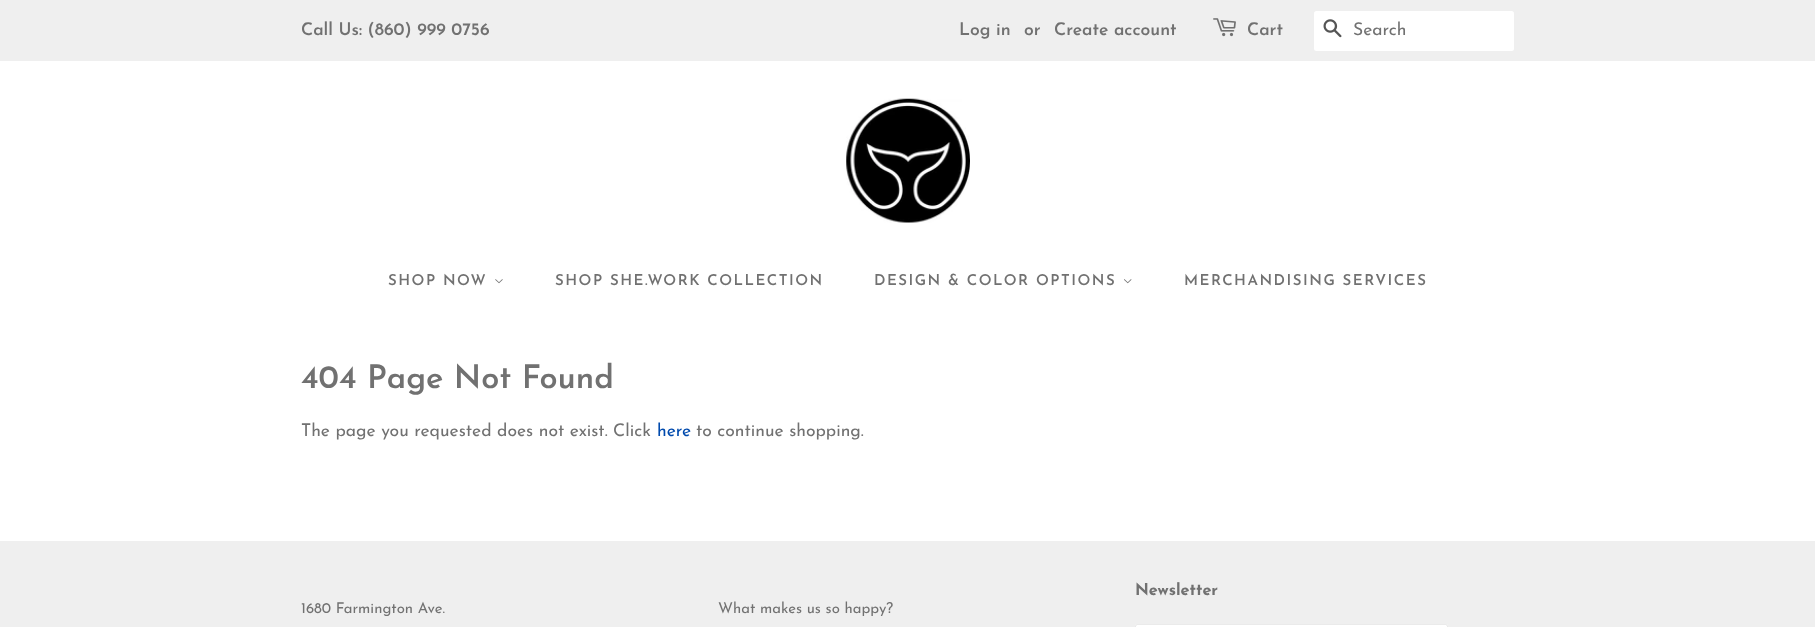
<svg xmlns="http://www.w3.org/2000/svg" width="1815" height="627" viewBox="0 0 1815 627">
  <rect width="100%" height="100%" fill="#fff"/>
  <path d="M0 0h1815v61H0z" fill="#efefef"/>
  <image x="1213" y="18" width="23" height="19" href="img/1.png"/>
  <rect x="1314" y="11" width="200" height="40" rx="2.5" fill="#fff"/>
  <image x="1323" y="19" width="19" height="19" href="img/2.png"/>
  <image x="846" y="98" width="124" height="125" href="img/3.png"/>
  <image x="495" y="279" width="8" height="5" href="img/4.png"/>
  <image x="1124" y="279" width="8" height="5" href="img/5.png"/>
  <path d="M0 541h1815v86H0z" fill="#efefef"/>
  <rect x="1135" y="624" width="313" height="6" rx="2.5" fill="#fff"/>
  <rect x="1135.5" y="624.5" width="312" height="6" rx="2" fill="none" stroke="#71717126"/>
  <g font-family="Josefin Sans" font-size="17.5" font-weight="600" fill="#717171">
    <text x="301" y="35">Call Us: (860) 999 0756</text>
    <text x="959" y="35">Log in</text>
    <text x="1024" y="35">or</text>
    <text x="1054" y="35">Create account</text>
    <text x="1247" y="35">Cart</text>
  </g>
  <text x="1353" y="35" font-family="Josefin Sans" font-size="17.5" fill="#717171">Search</text>
  <g font-family="Josefin Sans" font-size="15" font-weight="600" letter-spacing="1.5" fill="#717171">
    <text x="388" y="285">SHOP NOW</text>
    <text x="555" y="285">SHOP SHE.WORK COLLECTION</text>
    <text x="874" y="285">DESIGN &amp; COLOR OPTIONS</text>
    <text x="1184" y="285">MERCHANDISING SERVICES</text>
  </g>
  <text x="301" y="388" font-family="Josefin Sans" font-size="32.5" font-weight="600" fill="#717171">404 Page Not Found</text>
  <text x="301" y="436" font-family="Josefin Sans" font-size="17.5" fill="#717171">The page you requested does not exist. Click</text>
  <text x="657" y="436" font-family="Josefin Sans" font-size="17.5" fill="#004aad">here</text>
  <text x="696" y="436" font-family="Josefin Sans" font-size="17.5" fill="#717171">to continue shopping.</text>
  <text x="1135" y="595" font-family="Josefin Sans" font-size="16.25" font-weight="bold" fill="#717171">Newsletter</text>
  <g font-family="Josefin Sans" font-size="14.9" fill="#717171">
    <text x="301" y="613">1680 Farmington Ave.</text>
    <text x="718" y="613">What makes us so happy?</text>
  </g>
</svg>
